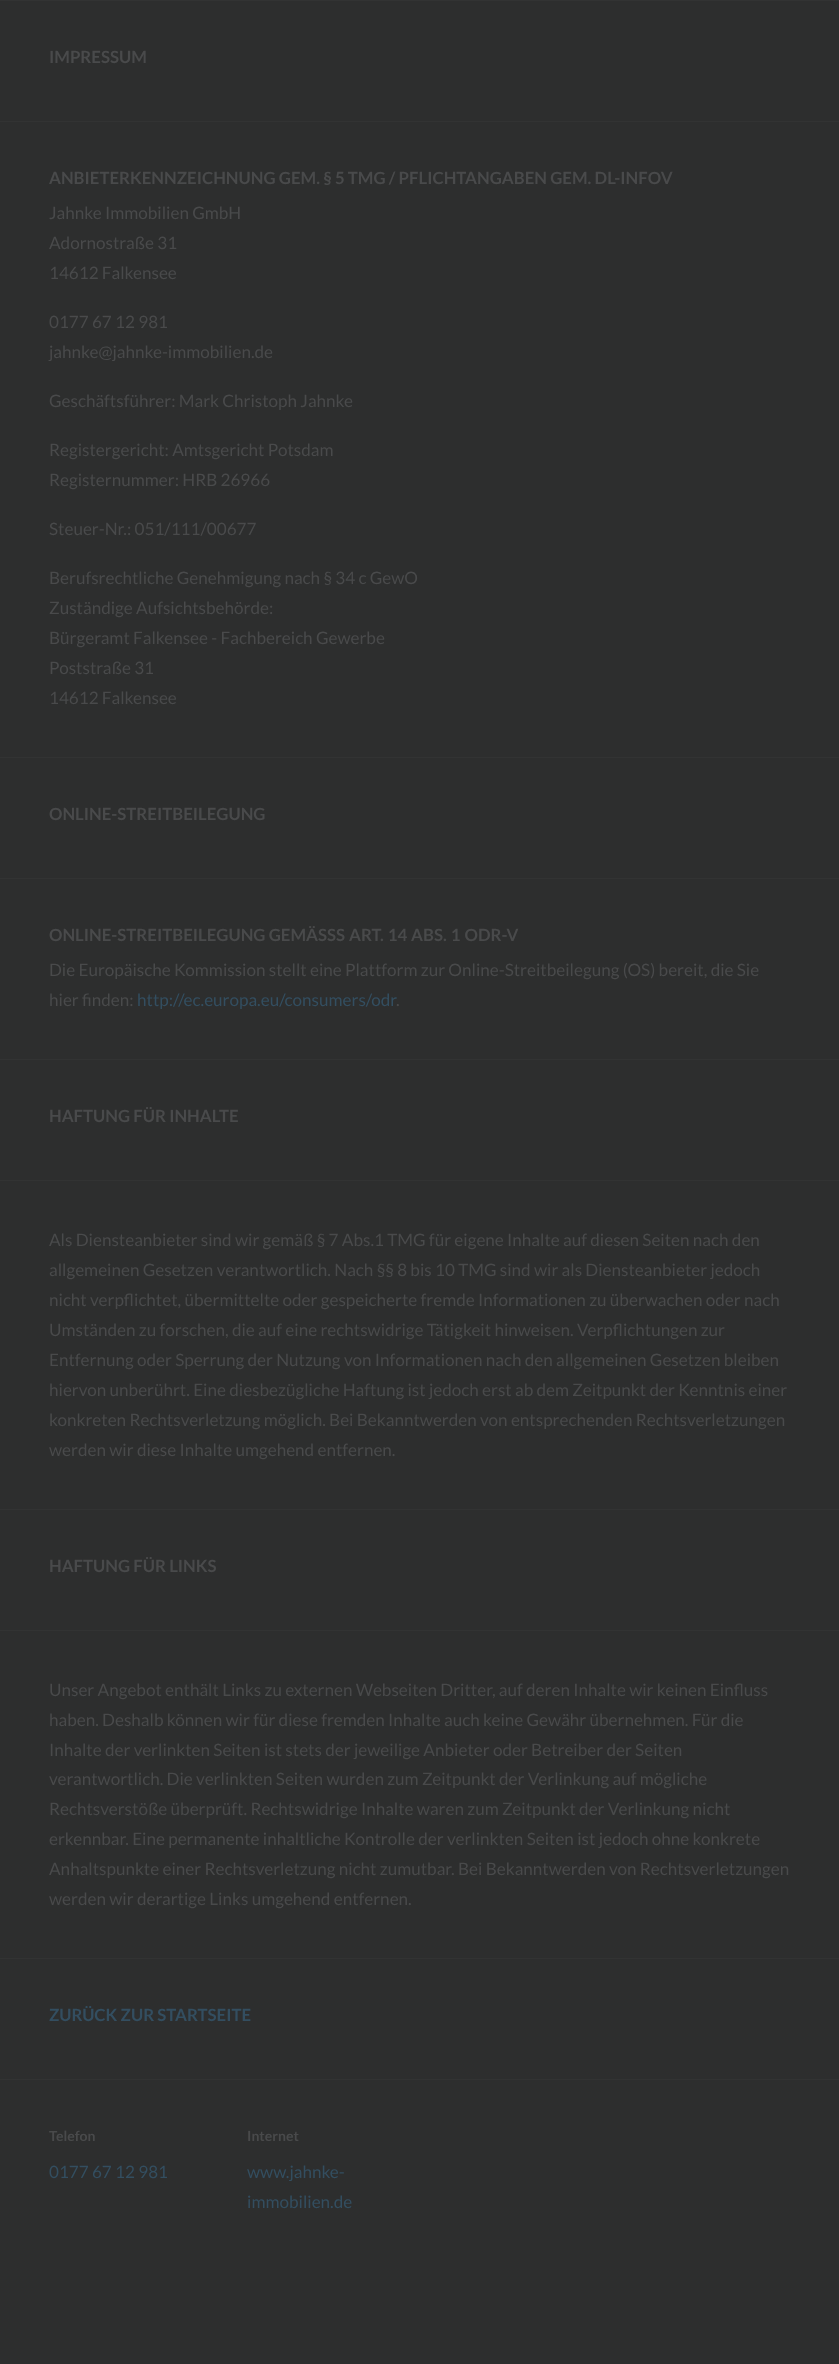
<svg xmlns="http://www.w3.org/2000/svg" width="839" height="2364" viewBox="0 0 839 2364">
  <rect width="100%" height="100%" fill="#2d2e2e"/>
  <path d="M0 0h839v1H0z" fill="#323333"/>
  <path d="M0 121h839v1H0z" fill="#323333"/>
  <path d="M0 757h839v1H0z" fill="#323333"/>
  <path d="M0 878h839v1H0z" fill="#323333"/>
  <path d="M0 1059h839v1H0z" fill="#323333"/>
  <path d="M0 1180h839v1H0z" fill="#323333"/>
  <path d="M0 1509h839v1H0z" fill="#323333"/>
  <path d="M0 1630h839v1H0z" fill="#323333"/>
  <path d="M0 1958h839v1H0z" fill="#323333"/>
  <path d="M0 2079h839v1H0z" fill="#323333"/>
  <g font-family="Lato" font-size="16.8" font-weight="bold" fill="#494a4b">
    <text x="49" y="63">IMPRESSUM</text>
    <text x="49" y="184">ANBIETERKENNZEICHNUNG GEM. § 5 TMG / PFLICHTANGABEN GEM. DL-INFOV</text>
  </g>
  <g font-family="Lato" font-size="17.1" fill="#494a4b">
    <text x="49" y="219">Jahnke Immobilien GmbH</text>
    <text x="49" y="249">Adornostraße 31</text>
    <text x="49" y="279">14612 Falkensee</text>
    <text x="49" y="328">0177 67 12 981</text>
    <text x="49" y="358">jahnke@jahnke-immobilien.de</text>
    <text x="49" y="407">Geschäftsführer: Mark Christoph Jahnke</text>
    <text x="49" y="456">Registergericht: Amtsgericht Potsdam</text>
    <text x="49" y="486">Registernummer: HRB 26966</text>
    <text x="49" y="535">Steuer-Nr.: 051/111/00677</text>
    <text x="49" y="584">Berufsrechtliche Genehmigung nach § 34 c GewO</text>
    <text x="49" y="614">Zuständige Aufsichtsbehörde:</text>
    <text x="49" y="644">Bürgeramt Falkensee - Fachbereich Gewerbe</text>
    <text x="49" y="674">Poststraße 31</text>
    <text x="49" y="704">14612 Falkensee</text>
  </g>
  <g font-family="Lato" font-size="16.8" font-weight="bold" fill="#494a4b">
    <text x="49" y="820">ONLINE-STREITBEILEGUNG</text>
    <text x="49" y="941">ONLINE-STREITBEILEGUNG GEMÄ</text>
    <text x="318" y="941">SS</text>
    <text x="336" y="941" word-spacing="0.75">S ART. 14 ABS. 1 ODR-V</text>
  </g>
  <g font-family="Lato" font-size="17.1" fill="#494a4b">
    <text x="49" y="976">Die Europäische Kommission stellt eine Plattform zur Online-Streitbeilegung (OS) bereit, die Sie</text>
    <text x="49" y="1006">hier finden:</text>
  </g>
  <text x="137" y="1006" font-family="Lato" font-size="17.1" fill="#334e60">http://ec.europa.eu/consumers/odr</text>
  <text x="396" y="1006" font-family="Lato" font-size="17.1" fill="#494a4b">.</text>
  <text x="49" y="1122" font-family="Lato" font-size="16.8" font-weight="bold" fill="#494a4b">HAFTUNG FÜR INHALTE</text>
  <g font-family="Lato" font-size="17.1" fill="#494a4b">
    <text x="49" y="1246">Als Diensteanbieter sind wir gemäß § 7 Abs.1 TMG für eigene Inhalte auf diesen Seiten nach den</text>
    <text x="49" y="1276">allgemeinen Gesetzen verantwortlich. Nach §§ 8 bis 10 TMG sind wir als Diensteanbieter jedoch</text>
    <text x="49" y="1306">nicht verpflichtet, übermittelte oder gespeicherte fremde Informationen zu überwachen oder nach</text>
    <text x="49" y="1336">Umständen zu forschen, die auf eine rechtswidrige Tätigkeit hinweisen. Verpflichtungen zur</text>
    <text x="49" y="1366">Entfernung oder Sperrung der Nutzung von Informationen nach den allgemeinen Gesetzen bleiben</text>
    <text x="49" y="1396">hiervon unberührt. Eine diesbezügliche Haftung ist jedoch erst ab dem Zeitpunkt der Kenntnis einer</text>
    <text x="49" y="1426">konkreten Rechtsverletzung möglich. Bei Bekanntwerden von entsprechenden Rechtsverletzungen</text>
    <text x="49" y="1456">werden wir diese Inhalte umgehend entfernen.</text>
  </g>
  <text x="49" y="1572" font-family="Lato" font-size="16.8" font-weight="bold" fill="#494a4b">HAFTUNG FÜR LINKS</text>
  <g font-family="Lato" font-size="17.1" fill="#494a4b">
    <text x="49" y="1696">Unser Angebot enthält Links zu externen Webseiten Dritter, auf deren Inhalte wir keinen Einfluss</text>
    <text x="49" y="1726">haben. Deshalb können wir für diese fremden Inhalte auch keine Gewähr übernehmen. Für die</text>
    <text x="49" y="1756">Inhalte der verlinkten Seiten ist stets der jeweilige Anbieter oder Betreiber der Seiten</text>
    <text x="49" y="1785">verantwortlich. Die verlinkten Seiten wurden zum Zeitpunkt der Verlinkung auf mögliche</text>
    <text x="49" y="1815">Rechtsverstöße überprüft. Rechtswidrige Inhalte waren zum Zeitpunkt der Verlinkung nicht</text>
    <text x="49" y="1845">erkennbar. Eine permanente inhaltliche Kontrolle der verlinkten Seiten ist jedoch ohne konkrete</text>
    <text x="49" y="1875">Anhaltspunkte einer Rechtsverletzung nicht zumutbar. Bei Bekanntwerden von Rechtsverletzungen</text>
    <text x="49" y="1905">werden wir derartige Links umgehend entfernen.</text>
  </g>
  <text x="49" y="2021" font-family="Lato" font-size="16.8" font-weight="bold" fill="#334e60">ZURÜCK ZUR STARTSEITE</text>
  <text x="49" y="2141" font-family="Lato" font-size="14" font-weight="bold" fill="#494a4b">Telefon</text>
  <text x="49" y="2178" font-family="Lato" font-size="17.1" fill="#334e60">0177 67 12 981</text>
  <text x="247" y="2141" font-family="Lato" font-size="14" font-weight="bold" fill="#494a4b">Internet</text>
  <g font-family="Lato" font-size="17.1" fill="#334e60">
    <text x="247" y="2178">www.jahnke-</text>
    <text x="247" y="2208">immobilien.de</text>
  </g>
</svg>
